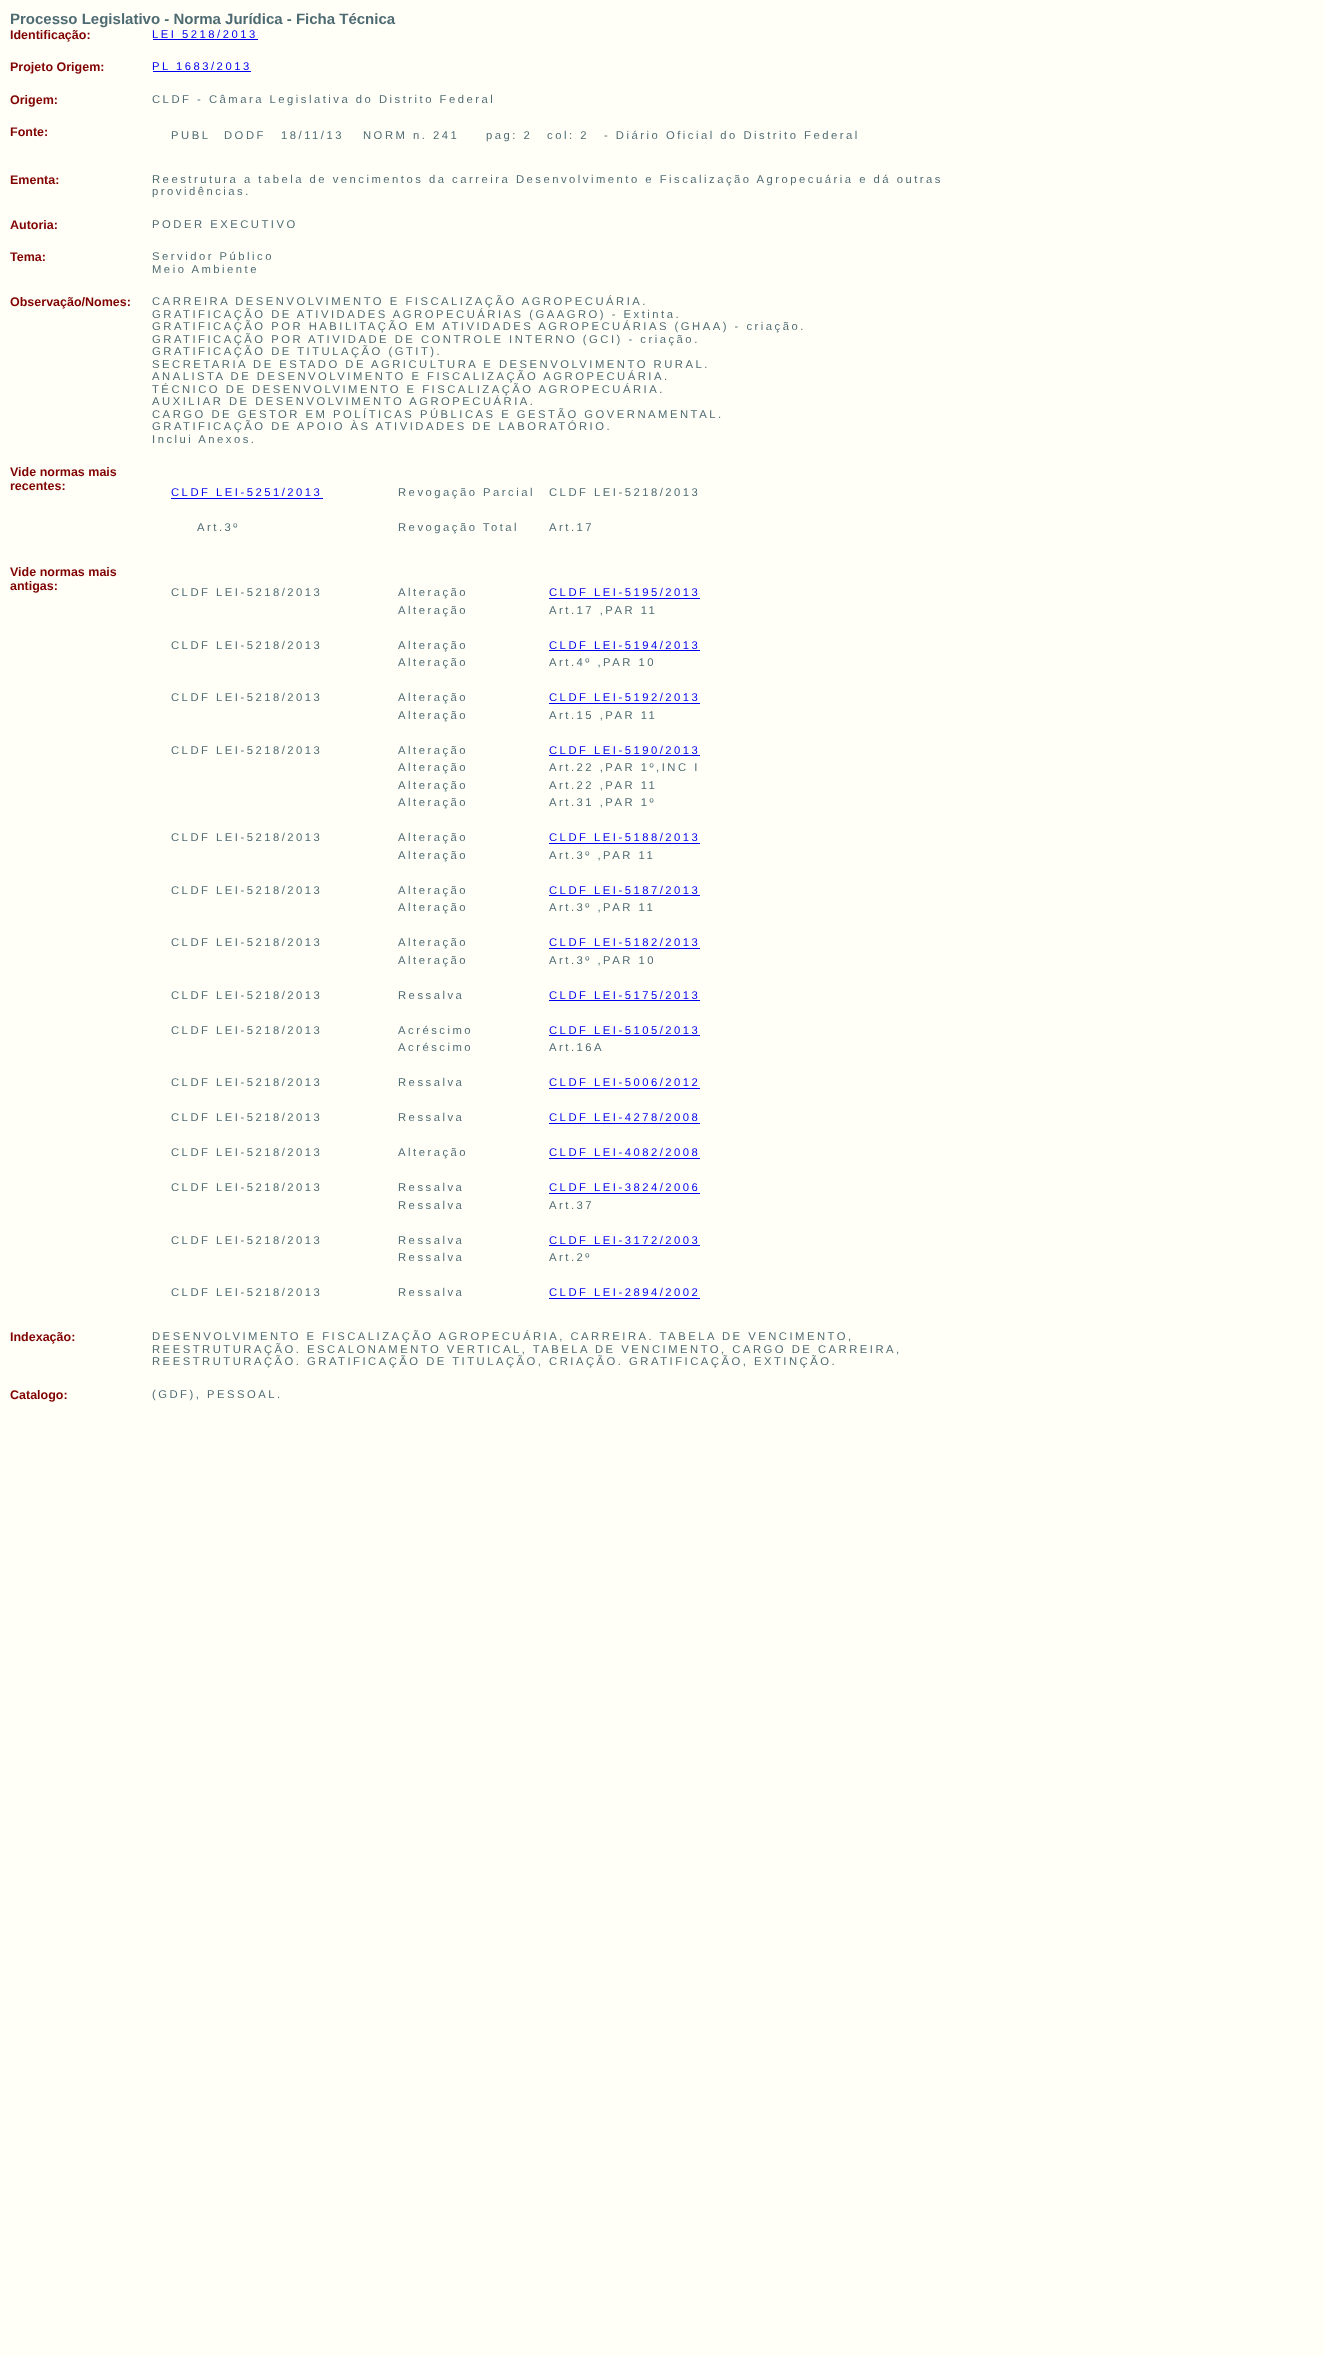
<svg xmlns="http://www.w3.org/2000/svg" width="1324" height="2356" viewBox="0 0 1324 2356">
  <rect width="100%" height="100%" fill="#fffff8"/>
  <path d="M153 39h105v1H153z" fill="#00e"/>
  <path d="M153 71h98v1H153z" fill="#00e"/>
  <path d="M171 498h152v1H171z" fill="#00e"/>
  <path d="M549 598h151v1H549z" fill="#00e"/>
  <path d="M549 650h151v1H549z" fill="#00e"/>
  <path d="M549 703h151v1H549z" fill="#00e"/>
  <path d="M549 755h151v1H549z" fill="#00e"/>
  <path d="M549 843h151v1H549z" fill="#00e"/>
  <path d="M549 895h151v1H549z" fill="#00e"/>
  <path d="M549 948h151v1H549z" fill="#00e"/>
  <path d="M549 1000h151v1H549z" fill="#00e"/>
  <path d="M549 1035h151v1H549z" fill="#00e"/>
  <path d="M549 1088h151v1H549z" fill="#00e"/>
  <path d="M549 1123h151v1H549z" fill="#00e"/>
  <path d="M549 1158h151v1H549z" fill="#00e"/>
  <path d="M549 1193h151v1H549z" fill="#00e"/>
  <path d="M549 1245h151v1H549z" fill="#00e"/>
  <path d="M549 1298h151v1H549z" fill="#00e"/>
  <text x="10" y="24" font-family="Liberation Sans" font-size="15" font-weight="bold" fill="#4f6b72">Processo Legislativo - Norma Jurídica - Ficha Técnica</text>
  <text x="10" y="39" font-family="Liberation Sans" font-size="12.5" font-weight="bold" fill="#800000">Identificação:</text>
  <text x="152" y="38" font-family="Liberation Sans" font-size="11.25" letter-spacing="2.5" fill="#00e">LEI 5218/2013</text>
  <text x="10" y="71" font-family="Liberation Sans" font-size="12.5" font-weight="bold" fill="#800000">Projeto Origem:</text>
  <text x="152" y="70" font-family="Liberation Sans" font-size="11.25" letter-spacing="2.5" fill="#00e">PL 1683/2013</text>
  <text x="10" y="104" font-family="Liberation Sans" font-size="12.5" font-weight="bold" fill="#800000">Origem:</text>
  <text x="152" y="103" font-family="Liberation Sans" font-size="11.25" letter-spacing="2.5" fill="#4f6b72">CLDF - Câmara Legislativa do Distrito Federal</text>
  <text x="10" y="136" font-family="Liberation Sans" font-size="12.5" font-weight="bold" fill="#800000">Fonte:</text>
  <g font-family="Liberation Sans" font-size="11.25" letter-spacing="2.5" fill="#4f6b72">
    <text x="171" y="139">PUBL</text>
    <text x="224" y="139">DODF</text>
    <text x="281" y="139">18/11/13</text>
    <text x="363" y="139">NORM n. 241</text>
    <text x="486" y="139">pag: 2</text>
    <text x="547" y="139">col: 2</text>
    <text x="604" y="139">- Diário Oficial do Distrito Federal</text>
  </g>
  <text x="10" y="184" font-family="Liberation Sans" font-size="12.5" font-weight="bold" fill="#800000">Ementa:</text>
  <g font-family="Liberation Sans" font-size="11.25" letter-spacing="2.5" fill="#4f6b72">
    <text x="152" y="183">Reestrutura a tabela de vencimentos da carreira Desenvolvimento e Fiscalização Agropecuária e dá outras</text>
    <text x="152" y="195">providências.</text>
  </g>
  <text x="10" y="229" font-family="Liberation Sans" font-size="12.5" font-weight="bold" fill="#800000">Autoria:</text>
  <text x="152" y="228" font-family="Liberation Sans" font-size="11.25" letter-spacing="2.5" fill="#4f6b72">PODER EXECUTIVO</text>
  <text x="10" y="261" font-family="Liberation Sans" font-size="12.5" font-weight="bold" fill="#800000">Tema:</text>
  <g font-family="Liberation Sans" font-size="11.25" letter-spacing="2.5" fill="#4f6b72">
    <text x="152" y="260">Servidor Público</text>
    <text x="152" y="273">Meio Ambiente</text>
  </g>
  <text x="10" y="306" font-family="Liberation Sans" font-size="12.5" font-weight="bold" fill="#800000">Observação/Nomes:</text>
  <g font-family="Liberation Sans" font-size="11.25" letter-spacing="2.5" fill="#4f6b72">
    <text x="152" y="305">CARREIRA DESENVOLVIMENTO E FISCALIZAÇÃO AGROPECUÁRIA.</text>
    <text x="152" y="318">GRATIFICAÇÃO DE ATIVIDADES AGROPECUÁRIAS (GAAGRO) - Extinta.</text>
    <text x="152" y="330">GRATIFICAÇÃO POR HABILITAÇÃO EM ATIVIDADES AGROPECUÁRIAS (GHAA) - criação.</text>
    <text x="152" y="343">GRATIFICAÇÃO POR ATIVIDADE DE CONTROLE INTERNO (GCI) - criação.</text>
    <text x="152" y="355">GRATIFICAÇÃO DE TITULAÇÃO (GTIT).</text>
    <text x="152" y="368">SECRETARIA DE ESTADO DE AGRICULTURA E DESENVOLVIMENTO RURAL.</text>
    <text x="152" y="380">ANALISTA DE DESENVOLVIMENTO E FISCALIZAÇÃO AGROPECUÁRIA.</text>
    <text x="152" y="393">TÉCNICO DE DESENVOLVIMENTO E FISCALIZAÇÃO AGROPECUÁRIA.</text>
    <text x="152" y="405">AUXILIAR DE DESENVOLVIMENTO AGROPECUÁRIA.</text>
    <text x="152" y="418">CARGO DE GESTOR EM POLÍTICAS PÚBLICAS E GESTÃO GOVERNAMENTAL.</text>
    <text x="152" y="430">GRATIFICAÇÃO DE APOIO ÀS ATIVIDADES DE LABORATÓRIO.</text>
    <text x="152" y="443">Inclui Anexos.</text>
  </g>
  <g font-family="Liberation Sans" font-size="12.5" font-weight="bold" fill="#800000">
    <text x="10" y="476">Vide normas mais</text>
    <text x="10" y="490">recentes:</text>
  </g>
  <text x="171" y="496" font-family="Liberation Sans" font-size="11.25" letter-spacing="2.5" fill="#00e">CLDF LEI-5251/2013</text>
  <g font-family="Liberation Sans" font-size="11.25" letter-spacing="2.5" fill="#4f6b72">
    <text x="398" y="496">Revogação Parcial</text>
    <text x="549" y="496">CLDF LEI-5218/2013</text>
    <text x="197" y="531">Art.3º</text>
    <text x="398" y="531">Revogação Total</text>
    <text x="549" y="531">Art.17</text>
  </g>
  <g font-family="Liberation Sans" font-size="12.5" font-weight="bold" fill="#800000">
    <text x="10" y="576">Vide normas mais</text>
    <text x="10" y="590">antigas:</text>
  </g>
  <g font-family="Liberation Sans" font-size="11.25" letter-spacing="2.5" fill="#4f6b72">
    <text x="171" y="596">CLDF LEI-5218/2013</text>
    <text x="398" y="596">Alteração</text>
  </g>
  <text x="549" y="596" font-family="Liberation Sans" font-size="11.25" letter-spacing="2.5" fill="#00e">CLDF LEI-5195/2013</text>
  <g font-family="Liberation Sans" font-size="11.25" letter-spacing="2.5" fill="#4f6b72">
    <text x="398" y="614">Alteração</text>
    <text x="549" y="614">Art.17 ,PAR 11</text>
    <text x="171" y="649">CLDF LEI-5218/2013</text>
    <text x="398" y="649">Alteração</text>
  </g>
  <text x="549" y="649" font-family="Liberation Sans" font-size="11.25" letter-spacing="2.5" fill="#00e">CLDF LEI-5194/2013</text>
  <g font-family="Liberation Sans" font-size="11.25" letter-spacing="2.5" fill="#4f6b72">
    <text x="398" y="666">Alteração</text>
    <text x="549" y="666">Art.4º ,PAR 10</text>
    <text x="171" y="701">CLDF LEI-5218/2013</text>
    <text x="398" y="701">Alteração</text>
  </g>
  <text x="549" y="701" font-family="Liberation Sans" font-size="11.25" letter-spacing="2.5" fill="#00e">CLDF LEI-5192/2013</text>
  <g font-family="Liberation Sans" font-size="11.25" letter-spacing="2.5" fill="#4f6b72">
    <text x="398" y="719">Alteração</text>
    <text x="549" y="719">Art.15 ,PAR 11</text>
    <text x="171" y="754">CLDF LEI-5218/2013</text>
    <text x="398" y="754">Alteração</text>
  </g>
  <text x="549" y="754" font-family="Liberation Sans" font-size="11.25" letter-spacing="2.5" fill="#00e">CLDF LEI-5190/2013</text>
  <g font-family="Liberation Sans" font-size="11.25" letter-spacing="2.5" fill="#4f6b72">
    <text x="398" y="771">Alteração</text>
    <text x="549" y="771">Art.22 ,PAR 1º,INC I</text>
    <text x="398" y="789">Alteração</text>
    <text x="549" y="789">Art.22 ,PAR 11</text>
    <text x="398" y="806">Alteração</text>
    <text x="549" y="806">Art.31 ,PAR 1º</text>
    <text x="171" y="841">CLDF LEI-5218/2013</text>
    <text x="398" y="841">Alteração</text>
  </g>
  <text x="549" y="841" font-family="Liberation Sans" font-size="11.25" letter-spacing="2.5" fill="#00e">CLDF LEI-5188/2013</text>
  <g font-family="Liberation Sans" font-size="11.25" letter-spacing="2.5" fill="#4f6b72">
    <text x="398" y="859">Alteração</text>
    <text x="549" y="859">Art.3º ,PAR 11</text>
    <text x="171" y="894">CLDF LEI-5218/2013</text>
    <text x="398" y="894">Alteração</text>
  </g>
  <text x="549" y="894" font-family="Liberation Sans" font-size="11.25" letter-spacing="2.5" fill="#00e">CLDF LEI-5187/2013</text>
  <g font-family="Liberation Sans" font-size="11.25" letter-spacing="2.5" fill="#4f6b72">
    <text x="398" y="911">Alteração</text>
    <text x="549" y="911">Art.3º ,PAR 11</text>
    <text x="171" y="946">CLDF LEI-5218/2013</text>
    <text x="398" y="946">Alteração</text>
  </g>
  <text x="549" y="946" font-family="Liberation Sans" font-size="11.25" letter-spacing="2.5" fill="#00e">CLDF LEI-5182/2013</text>
  <g font-family="Liberation Sans" font-size="11.25" letter-spacing="2.5" fill="#4f6b72">
    <text x="398" y="964">Alteração</text>
    <text x="549" y="964">Art.3º ,PAR 10</text>
    <text x="171" y="999">CLDF LEI-5218/2013</text>
    <text x="398" y="999">Ressalva</text>
  </g>
  <text x="549" y="999" font-family="Liberation Sans" font-size="11.25" letter-spacing="2.5" fill="#00e">CLDF LEI-5175/2013</text>
  <g font-family="Liberation Sans" font-size="11.25" letter-spacing="2.5" fill="#4f6b72">
    <text x="171" y="1034">CLDF LEI-5218/2013</text>
    <text x="398" y="1034">Acréscimo</text>
  </g>
  <text x="549" y="1034" font-family="Liberation Sans" font-size="11.25" letter-spacing="2.5" fill="#00e">CLDF LEI-5105/2013</text>
  <g font-family="Liberation Sans" font-size="11.25" letter-spacing="2.5" fill="#4f6b72">
    <text x="398" y="1051">Acréscimo</text>
    <text x="549" y="1051">Art.16A</text>
    <text x="171" y="1086">CLDF LEI-5218/2013</text>
    <text x="398" y="1086">Ressalva</text>
  </g>
  <text x="549" y="1086" font-family="Liberation Sans" font-size="11.25" letter-spacing="2.5" fill="#00e">CLDF LEI-5006/2012</text>
  <g font-family="Liberation Sans" font-size="11.25" letter-spacing="2.5" fill="#4f6b72">
    <text x="171" y="1121">CLDF LEI-5218/2013</text>
    <text x="398" y="1121">Ressalva</text>
  </g>
  <text x="549" y="1121" font-family="Liberation Sans" font-size="11.25" letter-spacing="2.5" fill="#00e">CLDF LEI-4278/2008</text>
  <g font-family="Liberation Sans" font-size="11.25" letter-spacing="2.5" fill="#4f6b72">
    <text x="171" y="1156">CLDF LEI-5218/2013</text>
    <text x="398" y="1156">Alteração</text>
  </g>
  <text x="549" y="1156" font-family="Liberation Sans" font-size="11.25" letter-spacing="2.5" fill="#00e">CLDF LEI-4082/2008</text>
  <g font-family="Liberation Sans" font-size="11.25" letter-spacing="2.5" fill="#4f6b72">
    <text x="171" y="1191">CLDF LEI-5218/2013</text>
    <text x="398" y="1191">Ressalva</text>
  </g>
  <text x="549" y="1191" font-family="Liberation Sans" font-size="11.25" letter-spacing="2.5" fill="#00e">CLDF LEI-3824/2006</text>
  <g font-family="Liberation Sans" font-size="11.25" letter-spacing="2.5" fill="#4f6b72">
    <text x="398" y="1209">Ressalva</text>
    <text x="549" y="1209">Art.37</text>
    <text x="171" y="1244">CLDF LEI-5218/2013</text>
    <text x="398" y="1244">Ressalva</text>
  </g>
  <text x="549" y="1244" font-family="Liberation Sans" font-size="11.25" letter-spacing="2.5" fill="#00e">CLDF LEI-3172/2003</text>
  <g font-family="Liberation Sans" font-size="11.25" letter-spacing="2.5" fill="#4f6b72">
    <text x="398" y="1261">Ressalva</text>
    <text x="549" y="1261">Art.2º</text>
    <text x="171" y="1296">CLDF LEI-5218/2013</text>
    <text x="398" y="1296">Ressalva</text>
  </g>
  <text x="549" y="1296" font-family="Liberation Sans" font-size="11.25" letter-spacing="2.5" fill="#00e">CLDF LEI-2894/2002</text>
  <text x="10" y="1341" font-family="Liberation Sans" font-size="12.5" font-weight="bold" fill="#800000">Indexação:</text>
  <g font-family="Liberation Sans" font-size="11.25" letter-spacing="2.5" fill="#4f6b72">
    <text x="152" y="1340">DESENVOLVIMENTO E FISCALIZAÇÃO AGROPECUÁRIA, CARREIRA. TABELA DE VENCIMENTO,</text>
    <text x="152" y="1353">REESTRUTURAÇÃO. ESCALONAMENTO VERTICAL, TABELA DE VENCIMENTO, CARGO DE CARREIRA,</text>
    <text x="152" y="1365">REESTRUTURAÇÃO. GRATIFICAÇÃO DE TITULAÇÃO, CRIAÇÃO. GRATIFICAÇÃO, EXTINÇÃO.</text>
  </g>
  <text x="10" y="1399" font-family="Liberation Sans" font-size="12.5" font-weight="bold" fill="#800000">Catalogo:</text>
  <text x="152" y="1398" font-family="Liberation Sans" font-size="11.25" letter-spacing="2.5" fill="#4f6b72">(GDF), PESSOAL.</text>
</svg>
